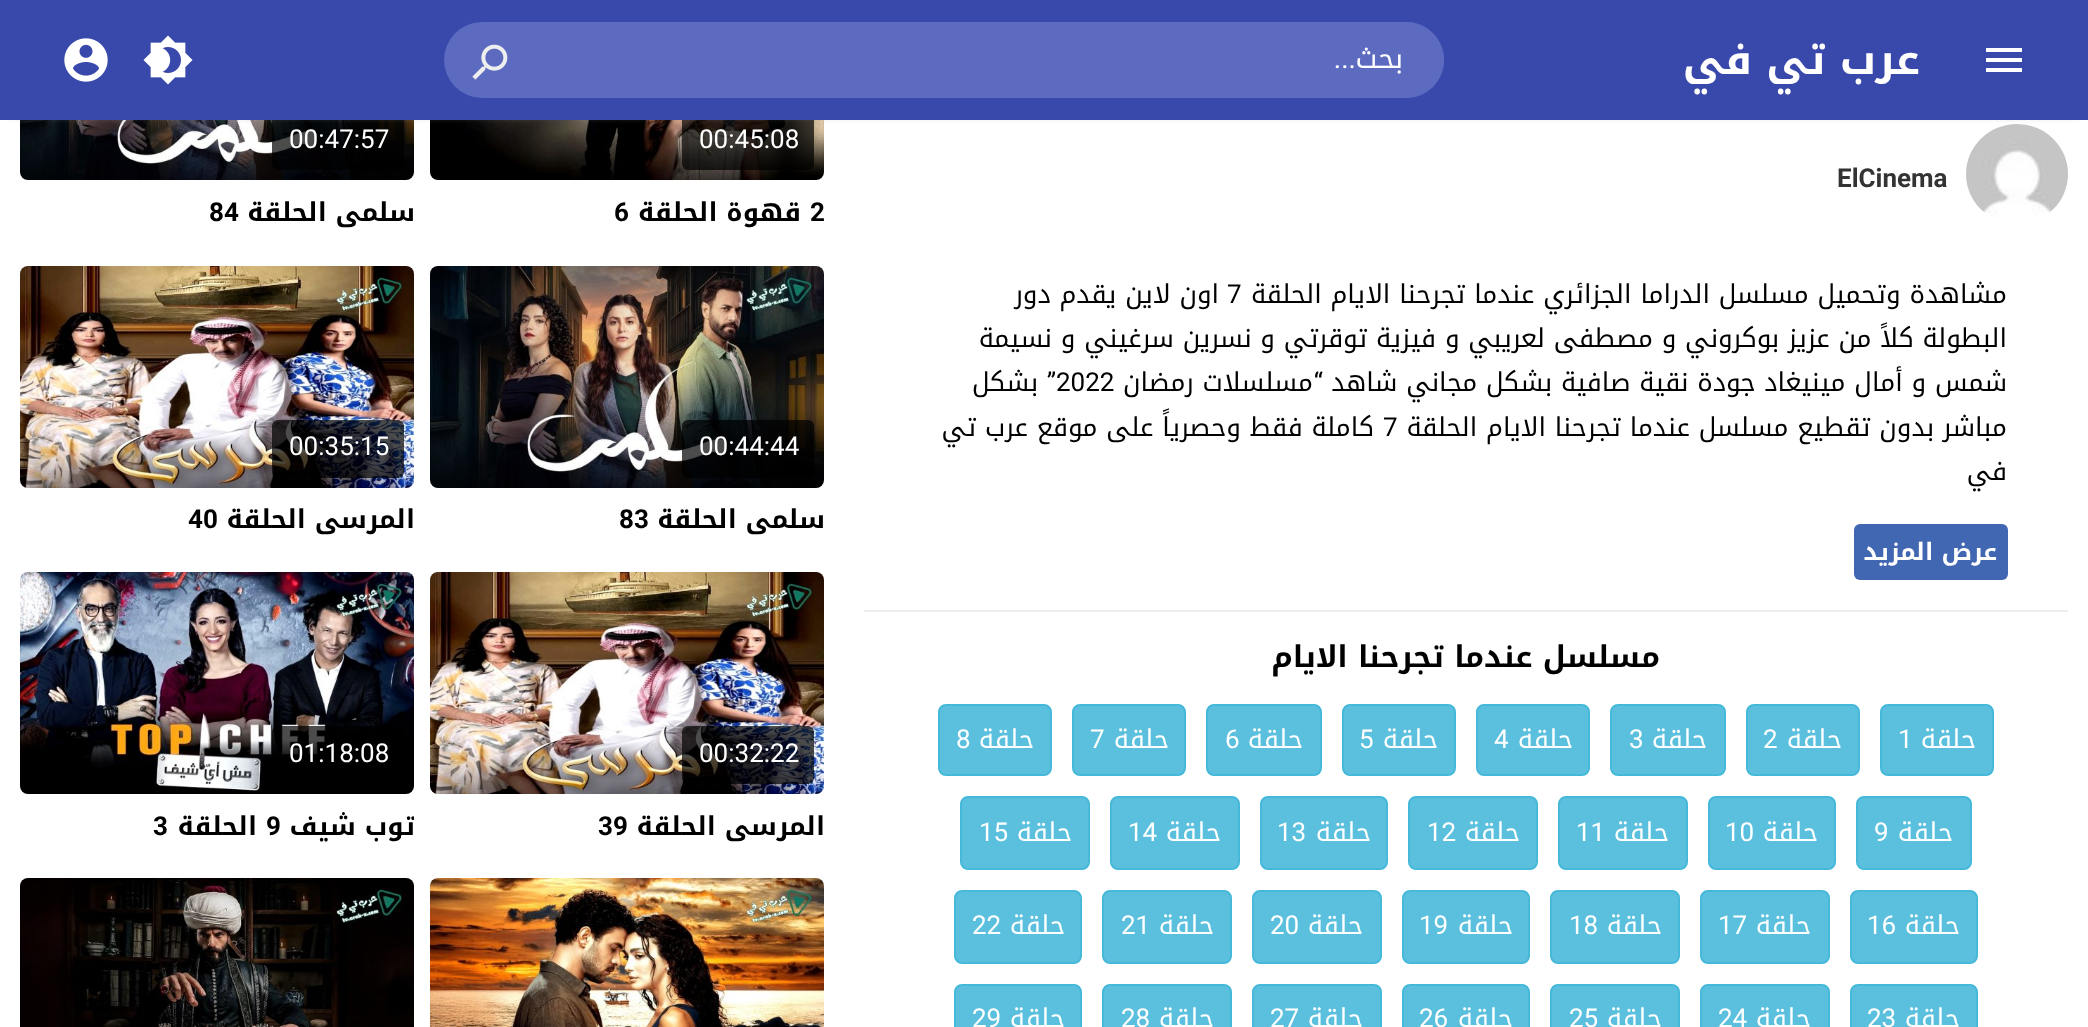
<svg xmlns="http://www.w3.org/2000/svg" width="2088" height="1027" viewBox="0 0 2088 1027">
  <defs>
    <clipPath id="clip1"><path d="M20 804h394v44H20z"/></clipPath>
  </defs>
  <rect width="100%" height="100%" fill="#fff"/>
  <image x="1966" y="124" width="102" height="93" href="img/5.png"/>
  <image x="430" y="120" width="394" height="60" href="img/6.png"/>
  <rect x="682" y="112" width="132" height="58" rx="6" fill="#000000b3"/>
  <image x="20" y="120" width="394" height="60" href="img/7.png"/>
  <rect x="272" y="112" width="132" height="58" rx="6" fill="#000000b3"/>
  <path d="M10 14h2068v100H10z" fill="#999" filter="blur(5px)"/>
  <path d="M0 0h2088v120H0z" fill="#3949ab"/>
  <image x="1986" y="48" width="36" height="24" href="img/1.png"/>
  <rect x="444" y="22" width="1000" height="76" rx="38" fill="#5c6bc0"/>
  <path d="M544 22H1406C1427 22 1444 39 1444 60C1444 81 1427 98 1406 98H544Z" fill="#5c6bc0"/>
  <image x="472" y="44" width="36" height="36" href="img/2.png"/>
  <image x="143" y="35" width="50" height="50" href="img/3.png"/>
  <image x="64" y="38" width="44" height="44" href="img/4.png"/>
  <rect x="1854" y="524" width="154" height="56" rx="6" fill="#4267b2"/>
  <path d="M864 610h1204v2H864z" fill="#eee"/>
  <rect x="1881" y="705" width="112" height="70" rx="7" fill="#5bc0de" stroke="#46b8da" stroke-width="2"/>
  <rect x="1747" y="705" width="112" height="70" rx="7" fill="#5bc0de" stroke="#46b8da" stroke-width="2"/>
  <rect x="1611" y="705" width="114" height="70" rx="7" fill="#5bc0de" stroke="#46b8da" stroke-width="2"/>
  <rect x="1477" y="705" width="112" height="70" rx="7" fill="#5bc0de" stroke="#46b8da" stroke-width="2"/>
  <rect x="1343" y="705" width="112" height="70" rx="7" fill="#5bc0de" stroke="#46b8da" stroke-width="2"/>
  <rect x="1207" y="705" width="114" height="70" rx="7" fill="#5bc0de" stroke="#46b8da" stroke-width="2"/>
  <rect x="1073" y="705" width="112" height="70" rx="7" fill="#5bc0de" stroke="#46b8da" stroke-width="2"/>
  <rect x="939" y="705" width="112" height="70" rx="7" fill="#5bc0de" stroke="#46b8da" stroke-width="2"/>
  <rect x="1857" y="797" width="114" height="72" rx="7" fill="#5bc0de" stroke="#46b8da" stroke-width="2"/>
  <rect x="1709" y="797" width="126" height="72" rx="7" fill="#5bc0de" stroke="#46b8da" stroke-width="2"/>
  <rect x="1559" y="797" width="128" height="72" rx="7" fill="#5bc0de" stroke="#46b8da" stroke-width="2"/>
  <rect x="1409" y="797" width="128" height="72" rx="7" fill="#5bc0de" stroke="#46b8da" stroke-width="2"/>
  <rect x="1261" y="797" width="126" height="72" rx="7" fill="#5bc0de" stroke="#46b8da" stroke-width="2"/>
  <rect x="1111" y="797" width="128" height="72" rx="7" fill="#5bc0de" stroke="#46b8da" stroke-width="2"/>
  <rect x="961" y="797" width="128" height="72" rx="7" fill="#5bc0de" stroke="#46b8da" stroke-width="2"/>
  <rect x="1851" y="891" width="126" height="72" rx="7" fill="#5bc0de" stroke="#46b8da" stroke-width="2"/>
  <rect x="1701" y="891" width="128" height="72" rx="7" fill="#5bc0de" stroke="#46b8da" stroke-width="2"/>
  <rect x="1551" y="891" width="128" height="72" rx="7" fill="#5bc0de" stroke="#46b8da" stroke-width="2"/>
  <rect x="1403" y="891" width="126" height="72" rx="7" fill="#5bc0de" stroke="#46b8da" stroke-width="2"/>
  <rect x="1253" y="891" width="128" height="72" rx="7" fill="#5bc0de" stroke="#46b8da" stroke-width="2"/>
  <rect x="1103" y="891" width="128" height="72" rx="7" fill="#5bc0de" stroke="#46b8da" stroke-width="2"/>
  <rect x="955" y="891" width="126" height="72" rx="7" fill="#5bc0de" stroke="#46b8da" stroke-width="2"/>
  <rect x="1851" y="985" width="126" height="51" rx="7" fill="#5bc0de" stroke="#46b8da" stroke-width="2"/>
  <rect x="1701" y="985" width="128" height="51" rx="7" fill="#5bc0de" stroke="#46b8da" stroke-width="2"/>
  <rect x="1551" y="985" width="128" height="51" rx="7" fill="#5bc0de" stroke="#46b8da" stroke-width="2"/>
  <rect x="1403" y="985" width="126" height="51" rx="7" fill="#5bc0de" stroke="#46b8da" stroke-width="2"/>
  <rect x="1253" y="985" width="128" height="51" rx="7" fill="#5bc0de" stroke="#46b8da" stroke-width="2"/>
  <rect x="1103" y="985" width="128" height="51" rx="7" fill="#5bc0de" stroke="#46b8da" stroke-width="2"/>
  <rect x="955" y="985" width="126" height="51" rx="7" fill="#5bc0de" stroke="#46b8da" stroke-width="2"/>
  <image x="430" y="266" width="394" height="222" href="img/8.png"/>
  <rect x="682" y="420" width="132" height="58" rx="6" fill="#000000b3"/>
  <image x="20" y="266" width="394" height="222" href="img/9.png"/>
  <rect x="272" y="420" width="132" height="58" rx="6" fill="#000000b3"/>
  <image x="430" y="572" width="394" height="222" href="img/10.png"/>
  <rect x="682" y="726" width="132" height="58" rx="6" fill="#000000b3"/>
  <image x="20" y="572" width="394" height="222" href="img/11.png"/>
  <rect x="272" y="726" width="132" height="58" rx="6" fill="#000000b3"/>
  <image x="430" y="878" width="394" height="149" href="img/12.png"/>
  <image x="20" y="878" width="394" height="149" href="img/13.png"/>
  <text x="1920" y="74" font-family="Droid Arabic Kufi" font-size="42" font-weight="bold" direction="rtl" fill="#fff">عرب تي في</text>
  <text x="1403" y="68" font-family="Droid Arabic Kufi" font-size="28" direction="rtl" fill="#fff">بحث</text>
  <text x="1356" y="68" font-family="Roboto" font-size="28" direction="rtl" fill="#fff">...</text>
  <text x="1837" y="187" font-family="Roboto" font-size="26" font-weight="bold" fill="#333">ElCinema</text>
  <text x="2007" y="303" font-family="Droid Arabic Kufi" font-size="26" direction="rtl" fill="#000">مشاهدة وتحميل مسلسل الدراما الجزائري عندما تجرحنا الايام الحلقة</text>
  <text x="1227" y="303" font-family="Roboto" font-size="26" fill="#000">7</text>
  <g font-family="Droid Arabic Kufi" font-size="26" direction="rtl" fill="#000">
    <text x="1219" y="303">اون لاين يقدم دور</text>
    <text x="2007" y="347">البطولة كلاً من عزيز بوكروني و مصطفى لعريبي و فيزية توقرتي و نسرين سرغيني و نسيمة</text>
    <text x="2007" y="391">شمس و أمال مينيغاد جودة نقية صافية بشكل مجاني شاهد</text>
  </g>
  <text x="1323" y="391" font-family="Roboto" font-size="26" direction="rtl" fill="#000">“</text>
  <text x="1313" y="391" font-family="Droid Arabic Kufi" font-size="26" direction="rtl" fill="#000">مسلسلات رمضان</text>
  <text x="1056" y="391" font-family="Roboto" font-size="26" fill="#000">2022</text>
  <text x="1056" y="391" font-family="Roboto" font-size="26" direction="rtl" fill="#000">”</text>
  <g font-family="Droid Arabic Kufi" font-size="26" direction="rtl" fill="#000">
    <text x="1038" y="391">بشكل</text>
    <text x="2007" y="436">مباشر بدون تقطيع مسلسل عندما تجرحنا الايام الحلقة</text>
  </g>
  <text x="1383" y="436" font-family="Roboto" font-size="26" fill="#000">7</text>
  <g font-family="Droid Arabic Kufi" font-size="26" direction="rtl" fill="#000">
    <text x="1374" y="436">كاملة فقط وحصرياً على موقع عرب تي</text>
    <text x="2007" y="480">في</text>
  </g>
  <text x="1997" y="560" font-family="Droid Arabic Kufi" font-size="24" font-weight="bold" direction="rtl" fill="#fff">عرض المزيد</text>
  <text x="1660" y="667" font-family="Droid Arabic Kufi" font-size="30" font-weight="bold" direction="rtl" fill="#000">مسلسل عندما تجرحنا الايام</text>
  <text x="1976" y="748" font-family="Droid Arabic Kufi" font-size="26" direction="rtl" fill="#fff">حلقة</text>
  <text x="1898" y="748" font-family="Roboto" font-size="26" fill="#fff">1</text>
  <text x="1842" y="748" font-family="Droid Arabic Kufi" font-size="26" direction="rtl" fill="#fff">حلقة</text>
  <text x="1763" y="748" font-family="Roboto" font-size="26" fill="#fff">2</text>
  <text x="1707" y="748" font-family="Droid Arabic Kufi" font-size="26" direction="rtl" fill="#fff">حلقة</text>
  <text x="1629" y="748" font-family="Roboto" font-size="26" fill="#fff">3</text>
  <text x="1573" y="748" font-family="Droid Arabic Kufi" font-size="26" direction="rtl" fill="#fff">حلقة</text>
  <text x="1494" y="748" font-family="Roboto" font-size="26" fill="#fff">4</text>
  <text x="1438" y="748" font-family="Droid Arabic Kufi" font-size="26" direction="rtl" fill="#fff">حلقة</text>
  <text x="1359" y="748" font-family="Roboto" font-size="26" fill="#fff">5</text>
  <text x="1303" y="748" font-family="Droid Arabic Kufi" font-size="26" direction="rtl" fill="#fff">حلقة</text>
  <text x="1225" y="748" font-family="Roboto" font-size="26" fill="#fff">6</text>
  <text x="1169" y="748" font-family="Droid Arabic Kufi" font-size="26" direction="rtl" fill="#fff">حلقة</text>
  <text x="1090" y="748" font-family="Roboto" font-size="26" fill="#fff">7</text>
  <text x="1034" y="748" font-family="Droid Arabic Kufi" font-size="26" direction="rtl" fill="#fff">حلقة</text>
  <text x="956" y="748" font-family="Roboto" font-size="26" fill="#fff">8</text>
  <text x="1953" y="841" font-family="Droid Arabic Kufi" font-size="26" direction="rtl" fill="#fff">حلقة</text>
  <text x="1874" y="841" font-family="Roboto" font-size="26" fill="#fff">9</text>
  <text x="1818" y="841" font-family="Droid Arabic Kufi" font-size="26" direction="rtl" fill="#fff">حلقة</text>
  <text x="1725" y="841" font-family="Roboto" font-size="26" fill="#fff">10</text>
  <text x="1669" y="841" font-family="Droid Arabic Kufi" font-size="26" direction="rtl" fill="#fff">حلقة</text>
  <text x="1576" y="841" font-family="Roboto" font-size="26" fill="#fff">11</text>
  <text x="1520" y="841" font-family="Droid Arabic Kufi" font-size="26" direction="rtl" fill="#fff">حلقة</text>
  <text x="1427" y="841" font-family="Roboto" font-size="26" fill="#fff">12</text>
  <text x="1371" y="841" font-family="Droid Arabic Kufi" font-size="26" direction="rtl" fill="#fff">حلقة</text>
  <text x="1277" y="841" font-family="Roboto" font-size="26" fill="#fff">13</text>
  <text x="1221" y="841" font-family="Droid Arabic Kufi" font-size="26" direction="rtl" fill="#fff">حلقة</text>
  <text x="1128" y="841" font-family="Roboto" font-size="26" fill="#fff">14</text>
  <text x="1072" y="841" font-family="Droid Arabic Kufi" font-size="26" direction="rtl" fill="#fff">حلقة</text>
  <text x="979" y="841" font-family="Roboto" font-size="26" fill="#fff">15</text>
  <text x="1960" y="934" font-family="Droid Arabic Kufi" font-size="26" direction="rtl" fill="#fff">حلقة</text>
  <text x="1867" y="934" font-family="Roboto" font-size="26" fill="#fff">16</text>
  <text x="1811" y="934" font-family="Droid Arabic Kufi" font-size="26" direction="rtl" fill="#fff">حلقة</text>
  <text x="1718" y="934" font-family="Roboto" font-size="26" fill="#fff">17</text>
  <text x="1662" y="934" font-family="Droid Arabic Kufi" font-size="26" direction="rtl" fill="#fff">حلقة</text>
  <text x="1569" y="934" font-family="Roboto" font-size="26" fill="#fff">18</text>
  <text x="1513" y="934" font-family="Droid Arabic Kufi" font-size="26" direction="rtl" fill="#fff">حلقة</text>
  <text x="1419" y="934" font-family="Roboto" font-size="26" fill="#fff">19</text>
  <text x="1363" y="934" font-family="Droid Arabic Kufi" font-size="26" direction="rtl" fill="#fff">حلقة</text>
  <text x="1270" y="934" font-family="Roboto" font-size="26" fill="#fff">20</text>
  <text x="1214" y="934" font-family="Droid Arabic Kufi" font-size="26" direction="rtl" fill="#fff">حلقة</text>
  <text x="1121" y="934" font-family="Roboto" font-size="26" fill="#fff">21</text>
  <text x="1065" y="934" font-family="Droid Arabic Kufi" font-size="26" direction="rtl" fill="#fff">حلقة</text>
  <text x="972" y="934" font-family="Roboto" font-size="26" fill="#fff">22</text>
  <text x="1960" y="1027" font-family="Droid Arabic Kufi" font-size="26" direction="rtl" fill="#fff">حلقة</text>
  <text x="1867" y="1027" font-family="Roboto" font-size="26" fill="#fff">23</text>
  <text x="1811" y="1027" font-family="Droid Arabic Kufi" font-size="26" direction="rtl" fill="#fff">حلقة</text>
  <text x="1718" y="1027" font-family="Roboto" font-size="26" fill="#fff">24</text>
  <text x="1662" y="1027" font-family="Droid Arabic Kufi" font-size="26" direction="rtl" fill="#fff">حلقة</text>
  <text x="1569" y="1027" font-family="Roboto" font-size="26" fill="#fff">25</text>
  <text x="1513" y="1027" font-family="Droid Arabic Kufi" font-size="26" direction="rtl" fill="#fff">حلقة</text>
  <text x="1419" y="1027" font-family="Roboto" font-size="26" fill="#fff">26</text>
  <text x="1363" y="1027" font-family="Droid Arabic Kufi" font-size="26" direction="rtl" fill="#fff">حلقة</text>
  <text x="1270" y="1027" font-family="Roboto" font-size="26" fill="#fff">27</text>
  <text x="1214" y="1027" font-family="Droid Arabic Kufi" font-size="26" direction="rtl" fill="#fff">حلقة</text>
  <text x="1121" y="1027" font-family="Roboto" font-size="26" fill="#fff">28</text>
  <text x="1065" y="1027" font-family="Droid Arabic Kufi" font-size="26" direction="rtl" fill="#fff">حلقة</text>
  <g font-family="Roboto" font-size="26" fill="#fff">
    <text x="972" y="1027">29</text>
    <text x="699" y="148">00:45:08</text>
  </g>
  <text x="810" y="221" font-family="Roboto" font-size="26" font-weight="bold" fill="#000">2</text>
  <text x="801" y="221" font-family="Droid Arabic Kufi" font-size="26" font-weight="bold" direction="rtl" fill="#000">قهوة الحلقة</text>
  <text x="614" y="221" font-family="Roboto" font-size="26" font-weight="bold" fill="#000">6</text>
  <text x="289" y="148" font-family="Roboto" font-size="26" fill="#fff">00:47:57</text>
  <text x="415" y="221" font-family="Droid Arabic Kufi" font-size="26" font-weight="bold" direction="rtl" fill="#000">سلمى الحلقة</text>
  <text x="209" y="221" font-family="Roboto" font-size="26" font-weight="bold" fill="#000">84</text>
  <text x="699" y="455" font-family="Roboto" font-size="26" fill="#fff">00:44:44</text>
  <text x="825" y="528" font-family="Droid Arabic Kufi" font-size="26" font-weight="bold" direction="rtl" fill="#000">سلمى الحلقة</text>
  <text x="619" y="528" font-family="Roboto" font-size="26" font-weight="bold" fill="#000">83</text>
  <text x="289" y="455" font-family="Roboto" font-size="26" fill="#fff">00:35:15</text>
  <text x="415" y="528" font-family="Droid Arabic Kufi" font-size="26" font-weight="bold" direction="rtl" fill="#000">المرسى الحلقة</text>
  <text x="188" y="528" font-family="Roboto" font-size="26" font-weight="bold" fill="#000">40</text>
  <text x="699" y="762" font-family="Roboto" font-size="26" fill="#fff">00:32:22</text>
  <text x="825" y="835" font-family="Droid Arabic Kufi" font-size="26" font-weight="bold" direction="rtl" fill="#000">المرسى الحلقة</text>
  <text x="598" y="835" font-family="Roboto" font-size="26" font-weight="bold" fill="#000">39</text>
  <text x="289" y="762" font-family="Roboto" font-size="26" fill="#fff">01:18:08</text>
  <g clip-path="url(#clip1)">
    <text x="415" y="835" font-family="Droid Arabic Kufi" font-size="26" font-weight="bold" direction="rtl" fill="#000">توب شيف</text>
  </g>
  <text x="266" y="835" font-family="Roboto" font-size="26" font-weight="bold" fill="#000">9</text>
  <text x="257" y="835" font-family="Droid Arabic Kufi" font-size="26" font-weight="bold" direction="rtl" fill="#000">الحلقة</text>
  <text x="153" y="835" font-family="Roboto" font-size="26" font-weight="bold" fill="#000">3</text>
</svg>
